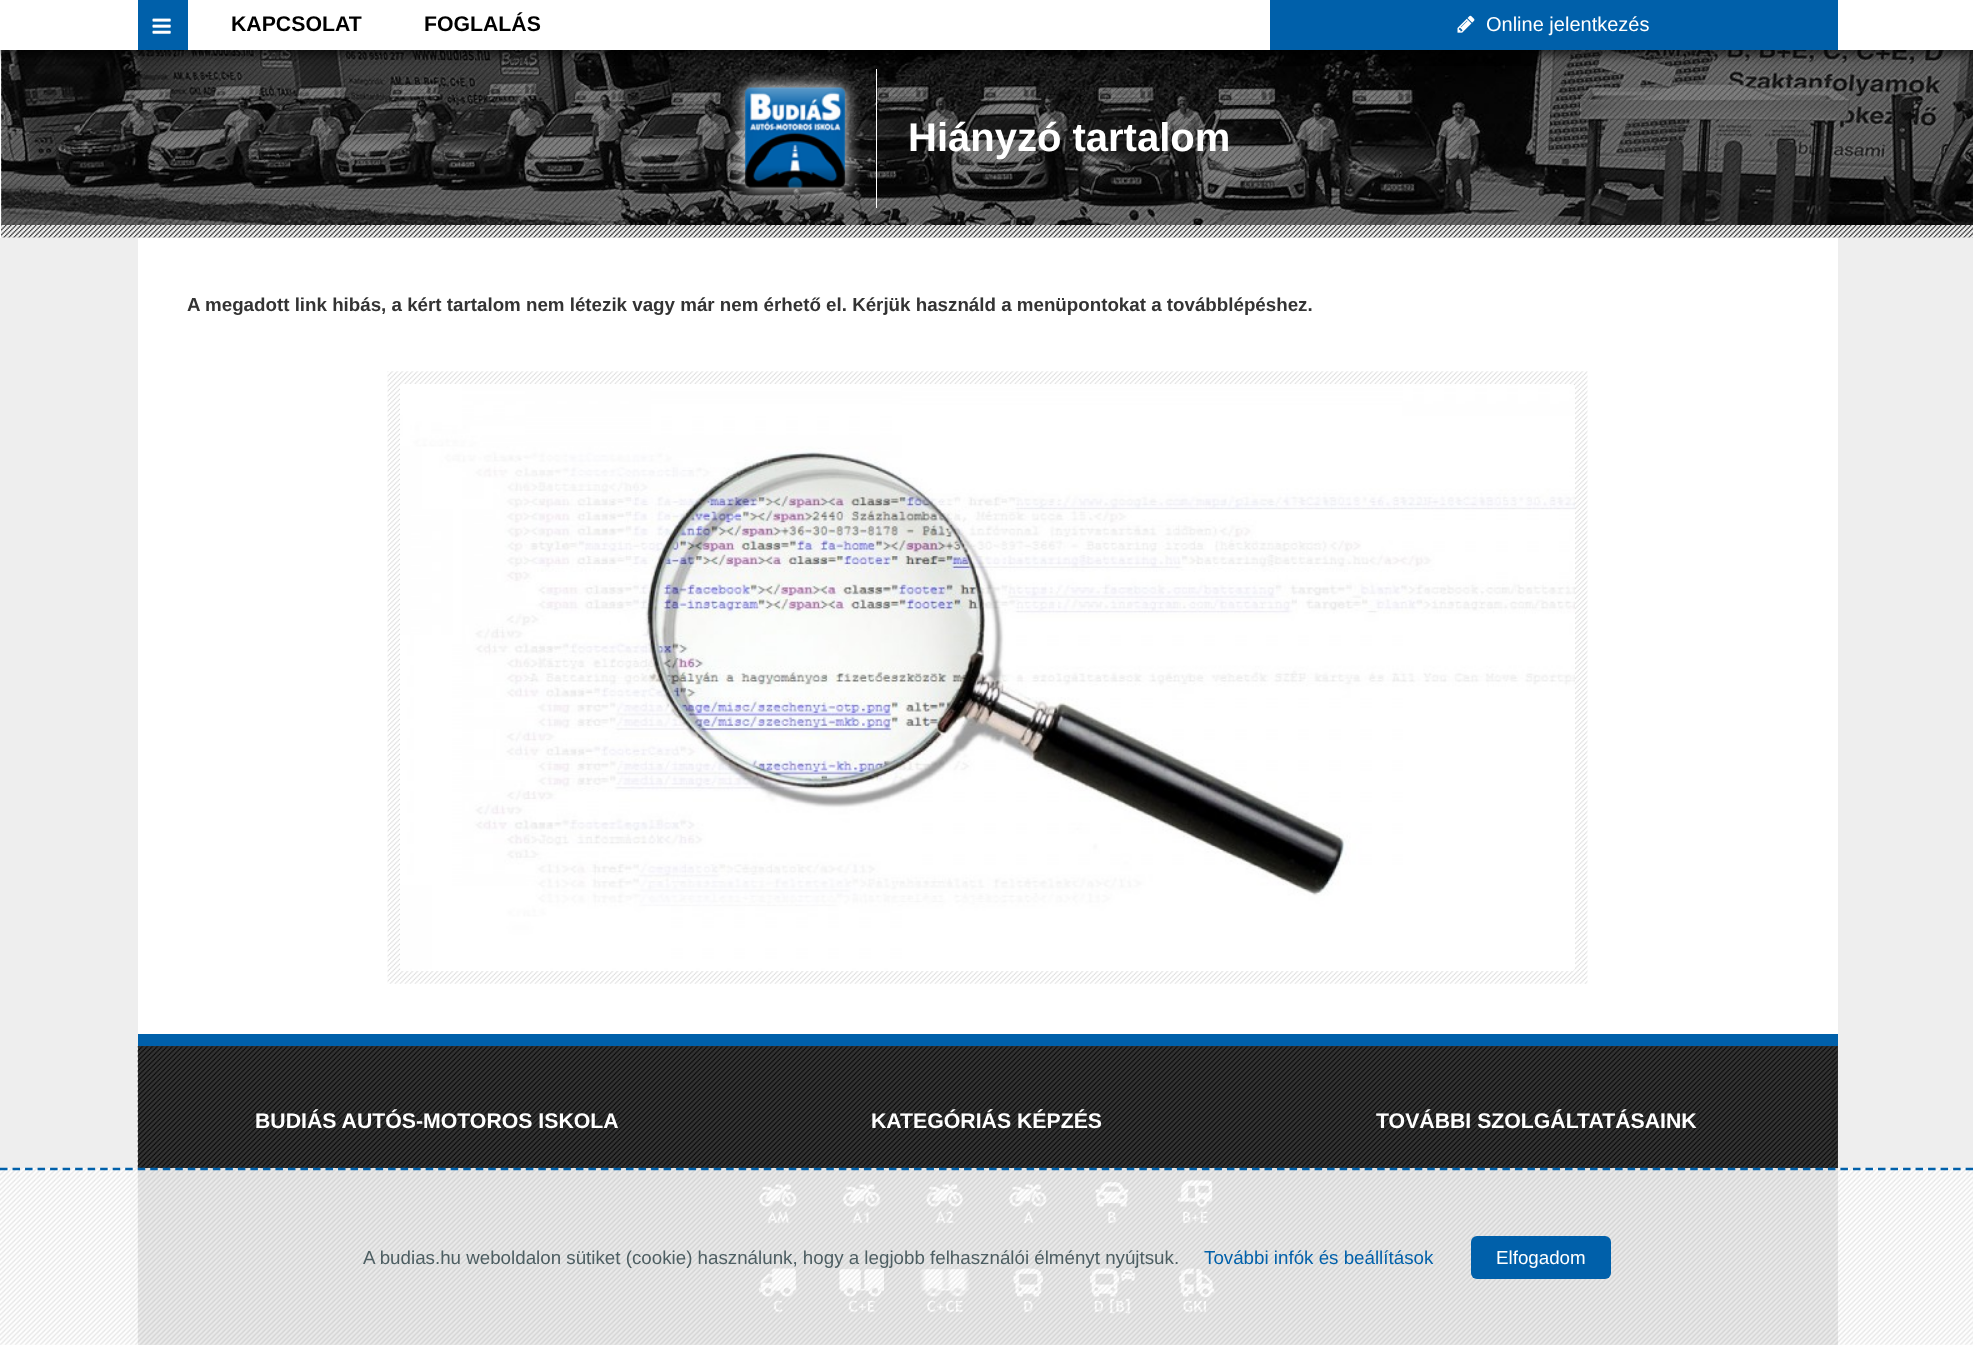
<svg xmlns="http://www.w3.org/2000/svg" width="1973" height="1345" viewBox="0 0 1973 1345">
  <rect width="100%" height="100%" fill="#eee"/>
  <image x="1" y="50" width="1972" height="188" href="img/3.png"/>
  <path d="M0 50h1v188H0z" fill="#fff"/>
  <image x="1" y="50" width="1972" height="175" href="img/4.png"/>
  <path d="M876 69h1v139H876z" fill="#fff"/>
  <path d="M0 3h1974v50H0z" fill="#00000080" filter="blur(6px)"/>
  <path d="M0 3h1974v50H0z" fill="#00000080" filter="blur(6px)"/>
  <path d="M0 0h1973v50H0z" fill="#fff"/>
  <path d="M138 0h50v50H138z" fill="#0060aa"/>
  <image x="152" y="18" width="19" height="16" href="img/1.png"/>
  <path d="M1270 0h568v50H1270z" fill="#0060aa"/>
  <image x="1457" y="15" width="18" height="18" href="img/2.png"/>
  <image x="730" y="73" width="130" height="129" href="img/5.png"/>
  <path d="M138 238h1700v796H138z" fill="#fff"/>
  <path d="M138 1034h1700v12H138z" fill="#0060aa"/>
  <image x="387" y="371" width="1201" height="613" href="img/6.png"/>
  <image x="400" y="384" width="1175" height="587" href="img/7.png"/>
  <path d="M138 1046h1700v299H138z" fill="#333"/>
  <image x="137" y="1046" width="1701" height="299" href="img/8.png"/>
  <image x="759" y="1184" width="38" height="40" href="img/9.png"/>
  <image x="842" y="1184" width="39" height="39" href="img/10.png"/>
  <image x="926" y="1184" width="37" height="39" href="img/11.png"/>
  <image x="1009" y="1184" width="38" height="39" href="img/12.png"/>
  <image x="1095" y="1182" width="34" height="41" href="img/13.png"/>
  <image x="1177" y="1180" width="36" height="43" href="img/14.png"/>
  <image x="759" y="1268" width="38" height="45" href="img/15.png"/>
  <image x="839" y="1269" width="45" height="44" href="img/16.png"/>
  <image x="920" y="1269" width="50" height="44" href="img/17.png"/>
  <image x="1013" y="1268" width="30" height="44" href="img/18.png"/>
  <image x="1090" y="1268" width="46" height="46" href="img/19.png"/>
  <image x="1179" y="1268" width="36" height="45" href="img/20.png"/>
  <path d="M0 1168h1973v177H0z" fill="#ffffffe6"/>
  <image x="0" y="1168" width="1973" height="177" href="img/21.png"/>
  <path d="M0 1169H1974" fill="none" stroke="#0060aa" stroke-width="2.5" stroke-dasharray="7.5 5.02"/>
  <rect x="1471" y="1236" width="140" height="43" rx="6" fill="#0060aa"/>
  <g font-family="Liberation Sans" font-size="21.25" font-weight="bold" fill="#000">
    <text x="231" y="31">KAPCSOLAT</text>
    <text x="424" y="31">FOGLALÁS</text>
  </g>
  <text x="1486" y="31" font-family="Liberation Sans" font-size="20" fill="#fff">Online jelentkezés</text>
  <text x="908" y="151" font-family="Liberation Sans" font-size="40" font-weight="bold" fill="#fff">Hiányzó tartalom</text>
  <text x="187" y="311" font-family="Liberation Sans" font-size="18.75" font-weight="bold" fill="#333">A megadott link hibás, a kért tartalom nem létezik vagy már nem érhető el. Kérjük használd a menüpontokat a továbblépéshez.</text>
  <g font-family="Liberation Sans" font-size="21.25" font-weight="bold" fill="#fff">
    <text x="255" y="1128">BUDIÁS AUTÓS-MOTOROS ISKOLA</text>
    <text x="871" y="1128">KATEGÓRIÁS KÉPZÉS</text>
    <text x="1376" y="1128">TOVÁBBI SZOLGÁLTATÁSAINK</text>
  </g>
  <text x="363" y="1264" font-family="Liberation Sans" font-size="18.75" fill="#4d5e62">A budias.hu weboldalon sütiket (cookie) használunk, hogy a legjobb felhasználói élményt nyújtsuk.</text>
  <text x="1204" y="1264" font-family="Liberation Sans" font-size="18.75" fill="#0060aa">További infók és beállítások</text>
  <text x="1496" y="1264" font-family="Liberation Sans" font-size="18.75" fill="#fff">Elfogadom</text>
</svg>
